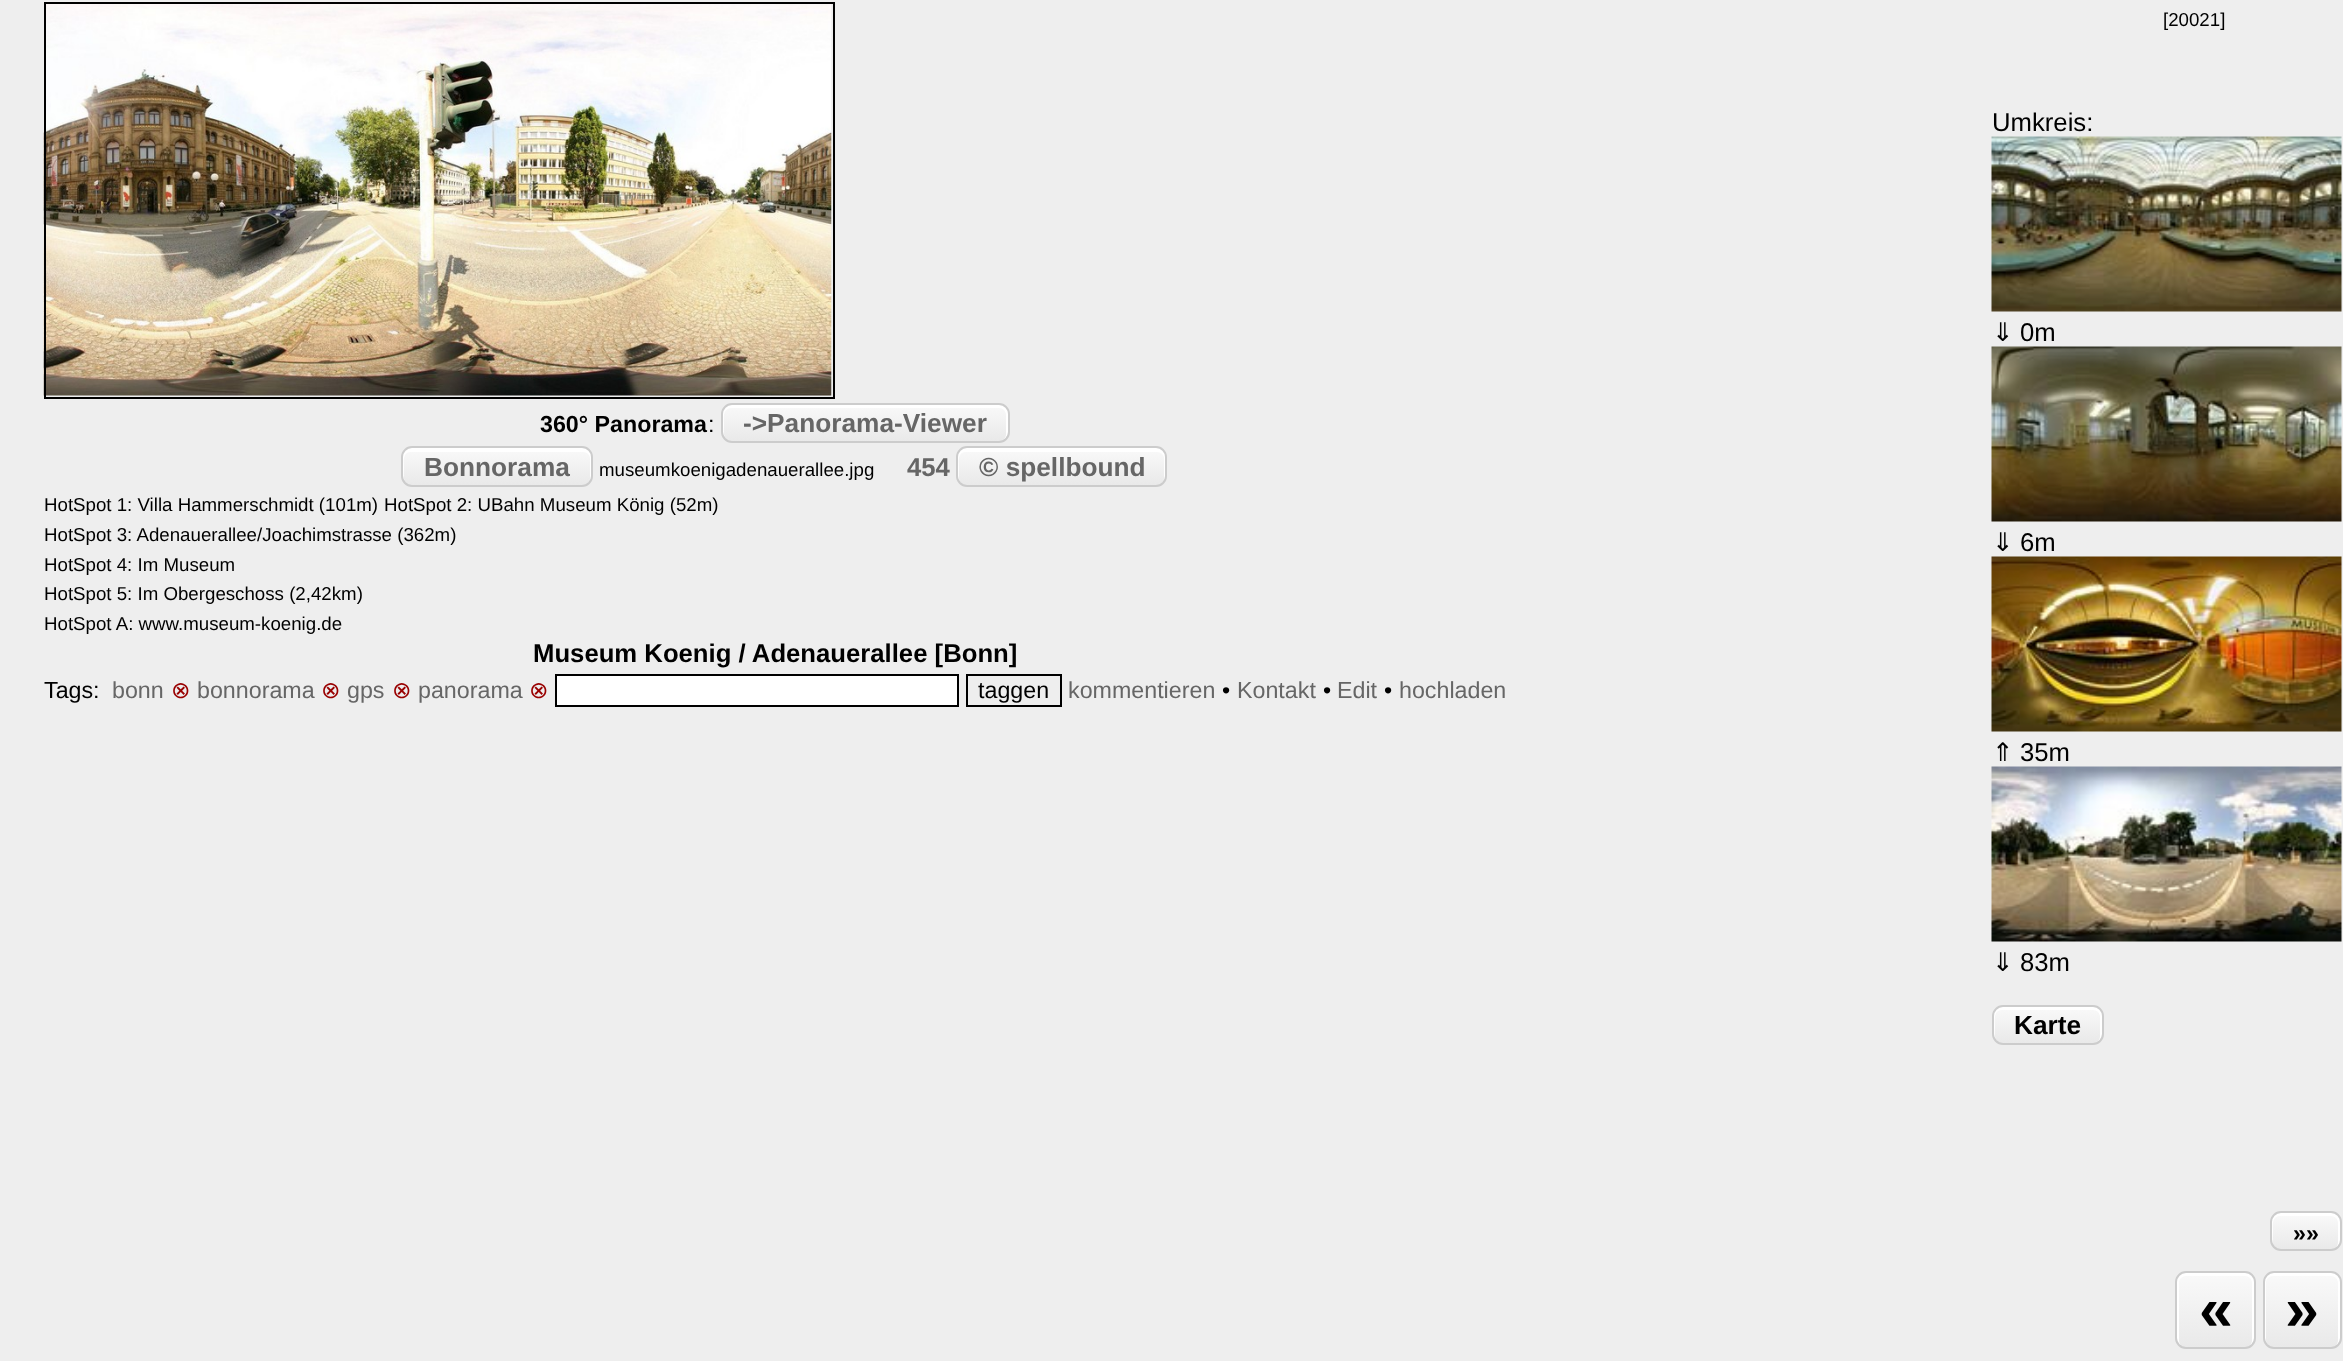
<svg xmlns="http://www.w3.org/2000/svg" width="2343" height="1361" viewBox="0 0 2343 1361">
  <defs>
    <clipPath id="clip1"><rect x="721" y="403" width="289" height="40" rx="11"/></clipPath>
    <linearGradient id="g1" gradientUnits="userSpaceOnUse" x1="723" y1="404" x2="723" y2="441"><stop offset="0.05" stop-color="#f9f9f9"/><stop offset="1" stop-color="#e9e9e9"/></linearGradient>
    <clipPath id="clip2"><rect x="401" y="446" width="192" height="41" rx="11"/></clipPath>
    <linearGradient id="g2" gradientUnits="userSpaceOnUse" x1="403" y1="448" x2="403" y2="485"><stop offset="0.05" stop-color="#f9f9f9"/><stop offset="1" stop-color="#e9e9e9"/></linearGradient>
    <clipPath id="clip3"><rect x="956" y="446" width="211" height="41" rx="11"/></clipPath>
    <linearGradient id="g3" gradientUnits="userSpaceOnUse" x1="957" y1="448" x2="957" y2="485"><stop offset="0.05" stop-color="#f9f9f9"/><stop offset="1" stop-color="#e9e9e9"/></linearGradient>
    <clipPath id="clip4"><rect x="1992" y="1005" width="112" height="40" rx="11"/></clipPath>
    <linearGradient id="g4" gradientUnits="userSpaceOnUse" x1="1993" y1="1006" x2="1993" y2="1043"><stop offset="0.05" stop-color="#f9f9f9"/><stop offset="1" stop-color="#e9e9e9"/></linearGradient>
    <clipPath id="clip5"><rect x="2270" y="1211" width="72" height="40" rx="11"/></clipPath>
    <linearGradient id="g5" gradientUnits="userSpaceOnUse" x1="2272" y1="1213" x2="2272" y2="1250"><stop offset="0.05" stop-color="#f9f9f9"/><stop offset="1" stop-color="#e9e9e9"/></linearGradient>
    <clipPath id="clip6"><rect x="2175" y="1271" width="81" height="78" rx="11"/></clipPath>
    <linearGradient id="g6" gradientUnits="userSpaceOnUse" x1="2177" y1="1272" x2="2177" y2="1348"><stop offset="0.05" stop-color="#f9f9f9"/><stop offset="1" stop-color="#e9e9e9"/></linearGradient>
    <clipPath id="clip7"><rect x="2263" y="1271" width="79" height="78" rx="11"/></clipPath>
    <linearGradient id="g7" gradientUnits="userSpaceOnUse" x1="2265" y1="1272" x2="2265" y2="1348"><stop offset="0.05" stop-color="#f9f9f9"/><stop offset="1" stop-color="#e9e9e9"/></linearGradient>
  </defs>
  <rect width="100%" height="100%" fill="#eee"/>
  <image x="43" y="1" width="789" height="395" href="img/1.png"/>
  <path d="M45 3h789v395H45z" fill="none" stroke="#000" stroke-width="2"/>
  <g clip-path="url(#clip1)">
    <path d="M721 404h289v37H721z" fill="url(#g1)"/>
  </g>
  <path d="M732 408H999C1003 408 1006 411 1006 415V434C1006 438 1003 441 999 441C1004 441 1008 437 1008 432V413C1008 408 1004 404 999 404H732C727 404 723 408 723 413V432C723 437 727 441 732 441C722 441 724 431 724 424C724 418 722 408 732 408Z" fill="#fff"/>
  <rect x="722" y="404" width="287" height="38" rx="10" fill="none" stroke="#ccc" stroke-width="2"/>
  <g clip-path="url(#clip2)">
    <path d="M401 448h192v37H401z" fill="url(#g2)"/>
  </g>
  <path d="M411 452H583C587 452 590 455 590 458V478C590 482 587 485 583 485C588 485 592 481 592 476V457C592 452 588 448 583 448H412C407 448 403 452 403 457V476C403 478 404 480 405 481C403 478 404 472 404 468C404 462 402 452 411 452Z" fill="#fff"/>
  <rect x="402" y="447" width="190" height="39" rx="10" fill="none" stroke="#ccc" stroke-width="2"/>
  <g clip-path="url(#clip3)">
    <path d="M956 448h211v37H956z" fill="url(#g3)"/>
  </g>
  <path d="M966 452H1157C1161 452 1164 455 1164 458V478C1164 482 1161 485 1157 485C1162 485 1166 481 1166 476V457C1166 452 1162 448 1157 448H966C961 448 957 452 957 457V476C957 481 961 485 966 485C957 485 959 474 959 468C959 462 957 452 966 452Z" fill="#fff"/>
  <rect x="957" y="447" width="209" height="39" rx="10" fill="none" stroke="#ccc" stroke-width="2"/>
  <path d="M556 675h402v31H556z" fill="#fff" stroke="#000" stroke-width="2"/>
  <path d="M967 675h94v31H967z" fill="none" stroke="#000" stroke-width="2"/>
  <image x="1991" y="136" width="351" height="176" href="img/2.png"/>
  <image x="1991" y="346" width="351" height="176" href="img/3.png"/>
  <image x="1991" y="556" width="351" height="176" href="img/4.png"/>
  <image x="1991" y="766" width="351" height="176" href="img/5.png"/>
  <g clip-path="url(#clip4)">
    <path d="M1992 1006h112v37H1992z" fill="url(#g4)"/>
  </g>
  <path d="M2002 1010H2093C2097 1010 2100 1013 2100 1017V1036C2100 1040 2097 1043 2093 1043C2098 1043 2102 1039 2102 1034V1015C2102 1010 2098 1006 2093 1006H2002C1997 1006 1993 1010 1993 1015V1034C1993 1039 1997 1043 2002 1043C1993 1043 1995 1032 1995 1026C1995 1021 1993 1010 2002 1010Z" fill="#fff"/>
  <rect x="1993" y="1006" width="110" height="38" rx="10" fill="none" stroke="#ccc" stroke-width="2"/>
  <g clip-path="url(#clip5)">
    <path d="M2270 1213h72v37H2270z" fill="url(#g5)"/>
  </g>
  <path d="M2280 1216H2331C2335 1216 2338 1219 2338 1223V1242C2338 1246 2335 1250 2331 1250C2336 1250 2340 1246 2340 1241V1222C2340 1217 2336 1213 2331 1213H2281C2276 1213 2272 1217 2272 1222V1241C2272 1244 2274 1247 2276 1248C2271 1245 2273 1238 2273 1232C2273 1227 2271 1216 2280 1216Z" fill="#fff"/>
  <rect x="2271" y="1212" width="70" height="38" rx="10" fill="none" stroke="#ccc" stroke-width="2"/>
  <g clip-path="url(#clip6)">
    <path d="M2175 1272h81v76H2175z" fill="url(#g6)"/>
  </g>
  <path d="M2186 1276H2245C2249 1276 2252 1279 2252 1283V1340C2252 1344 2249 1348 2245 1348C2250 1348 2254 1344 2254 1339V1281C2254 1276 2250 1272 2245 1272H2186C2181 1272 2177 1276 2177 1281V1339C2177 1344 2181 1348 2186 1348C2182 1348 2179 1344 2179 1340V1283C2179 1279 2182 1276 2186 1276Z" fill="#fff"/>
  <rect x="2176" y="1272" width="79" height="76" rx="10" fill="none" stroke="#ccc" stroke-width="2"/>
  <g clip-path="url(#clip7)">
    <path d="M2263 1272h79v76H2263z" fill="url(#g7)"/>
  </g>
  <path d="M2273 1276H2331C2335 1276 2338 1279 2338 1283V1340C2338 1344 2335 1348 2331 1348C2336 1348 2340 1344 2340 1339V1281C2340 1276 2336 1272 2331 1272H2274C2269 1272 2265 1276 2265 1281V1339C2265 1342 2267 1345 2269 1346C2267 1345 2266 1342 2266 1340V1283C2266 1279 2269 1276 2273 1276Z" fill="#fff"/>
  <rect x="2264" y="1272" width="77" height="76" rx="10" fill="none" stroke="#ccc" stroke-width="2"/>
  <text x="2163" y="26" font-family="Liberation Sans" font-size="18.7" fill="#000">[20021]</text>
  <text x="540" y="432" font-family="Liberation Sans" font-size="23.25" font-weight="bold" fill="#000">360° Panorama</text>
  <text x="708" y="432" font-family="Liberation Sans" font-size="23.25" fill="#000">:</text>
  <g font-family="Liberation Sans" font-size="26.25" font-weight="bold" fill="#666">
    <text x="743" y="432">-&gt;Panorama-Viewer</text>
    <text x="424" y="476">Bonnorama</text>
  </g>
  <text x="599" y="476" font-family="Liberation Sans" font-size="18.7" fill="#000">museumkoenigadenauerallee.jpg</text>
  <text x="907" y="476" font-family="Liberation Sans" font-size="25.7" font-weight="bold" fill="#666">454</text>
  <text x="979" y="476" font-family="Liberation Sans" font-size="26.25" font-weight="bold" fill="#666">© spellbound</text>
  <g font-family="Liberation Sans" font-size="18.7" fill="#000">
    <text x="44" y="511">HotSpot 1: Villa Hammerschmidt (101m)</text>
    <text x="384" y="511">HotSpot 2: UBahn Museum König (52m)</text>
    <text x="44" y="541">HotSpot 3: Adenauerallee/Joachimstrasse (362m)</text>
    <text x="44" y="571">HotSpot 4: Im Museum</text>
    <text x="44" y="600">HotSpot 5: Im Obergeschoss (2,42km)</text>
    <text x="44" y="630">HotSpot A: www.museum-koenig.de</text>
  </g>
  <text x="533" y="662" font-family="Liberation Sans" font-size="25.7" font-weight="bold" fill="#000">Museum Koenig / Adenauerallee [Bonn]</text>
  <text x="44" y="698" font-family="Liberation Sans" font-size="23.25" fill="#000">Tags:</text>
  <text x="112" y="698" font-family="Liberation Sans" font-size="23.25" fill="#666">bonn</text>
  <text x="171" y="698" font-family="DejaVu Sans" font-size="23.25" fill="#900">⊗</text>
  <text x="197" y="698" font-family="Liberation Sans" font-size="23.25" fill="#666">bonnorama</text>
  <text x="321" y="698" font-family="DejaVu Sans" font-size="23.25" fill="#900">⊗</text>
  <text x="347" y="698" font-family="Liberation Sans" font-size="23.25" fill="#666">gps</text>
  <text x="392" y="698" font-family="DejaVu Sans" font-size="23.25" fill="#900">⊗</text>
  <text x="418" y="698" font-family="Liberation Sans" font-size="23.25" fill="#666">panorama</text>
  <text x="529" y="698" font-family="DejaVu Sans" font-size="23.25" fill="#900">⊗</text>
  <text x="978" y="698" font-family="Liberation Sans" font-size="23.25" fill="#000">taggen</text>
  <text x="1068" y="698" font-family="Liberation Sans" font-size="23.25" fill="#666">kommentieren</text>
  <text x="1222" y="698" font-family="Liberation Sans" font-size="23.25" fill="#000">•</text>
  <text x="1237" y="698" font-family="Liberation Sans" font-size="23.25" fill="#666">Kontakt</text>
  <text x="1323" y="698" font-family="Liberation Sans" font-size="23.25" fill="#000">•</text>
  <text x="1337" y="698" font-family="Liberation Sans" font-size="23.25" fill="#666">Edit</text>
  <text x="1384" y="698" font-family="Liberation Sans" font-size="23.25" fill="#000">•</text>
  <text x="1399" y="698" font-family="Liberation Sans" font-size="23.25" fill="#666">hochladen</text>
  <text x="1992" y="131" font-family="Liberation Sans" font-size="25.7" fill="#000">Umkreis:</text>
  <text x="1992" y="341" font-family="DejaVu Sans" font-size="25.7" fill="#000">⇓</text>
  <text x="2020" y="341" font-family="Liberation Sans" font-size="25.7" fill="#000">0m</text>
  <text x="1992" y="551" font-family="DejaVu Sans" font-size="25.7" fill="#000">⇓</text>
  <text x="2020" y="551" font-family="Liberation Sans" font-size="25.7" fill="#000">6m</text>
  <text x="1992" y="761" font-family="DejaVu Sans" font-size="25.7" fill="#000">⇑</text>
  <text x="2020" y="761" font-family="Liberation Sans" font-size="25.7" fill="#000">35m</text>
  <text x="1992" y="971" font-family="DejaVu Sans" font-size="25.7" fill="#000">⇓</text>
  <text x="2020" y="971" font-family="Liberation Sans" font-size="25.7" fill="#000">83m</text>
  <text x="2014" y="1034" font-family="Liberation Sans" font-size="26.25" font-weight="bold" fill="#000">Karte</text>
  <text x="2293" y="1241" font-family="Liberation Sans" font-size="23.25" font-weight="bold" fill="#000">»»</text>
  <g font-family="Liberation Sans" font-size="61" font-weight="bold" fill="#000">
    <text x="2199" y="1330">«</text>
    <text x="2285" y="1330">»</text>
  </g>
</svg>
